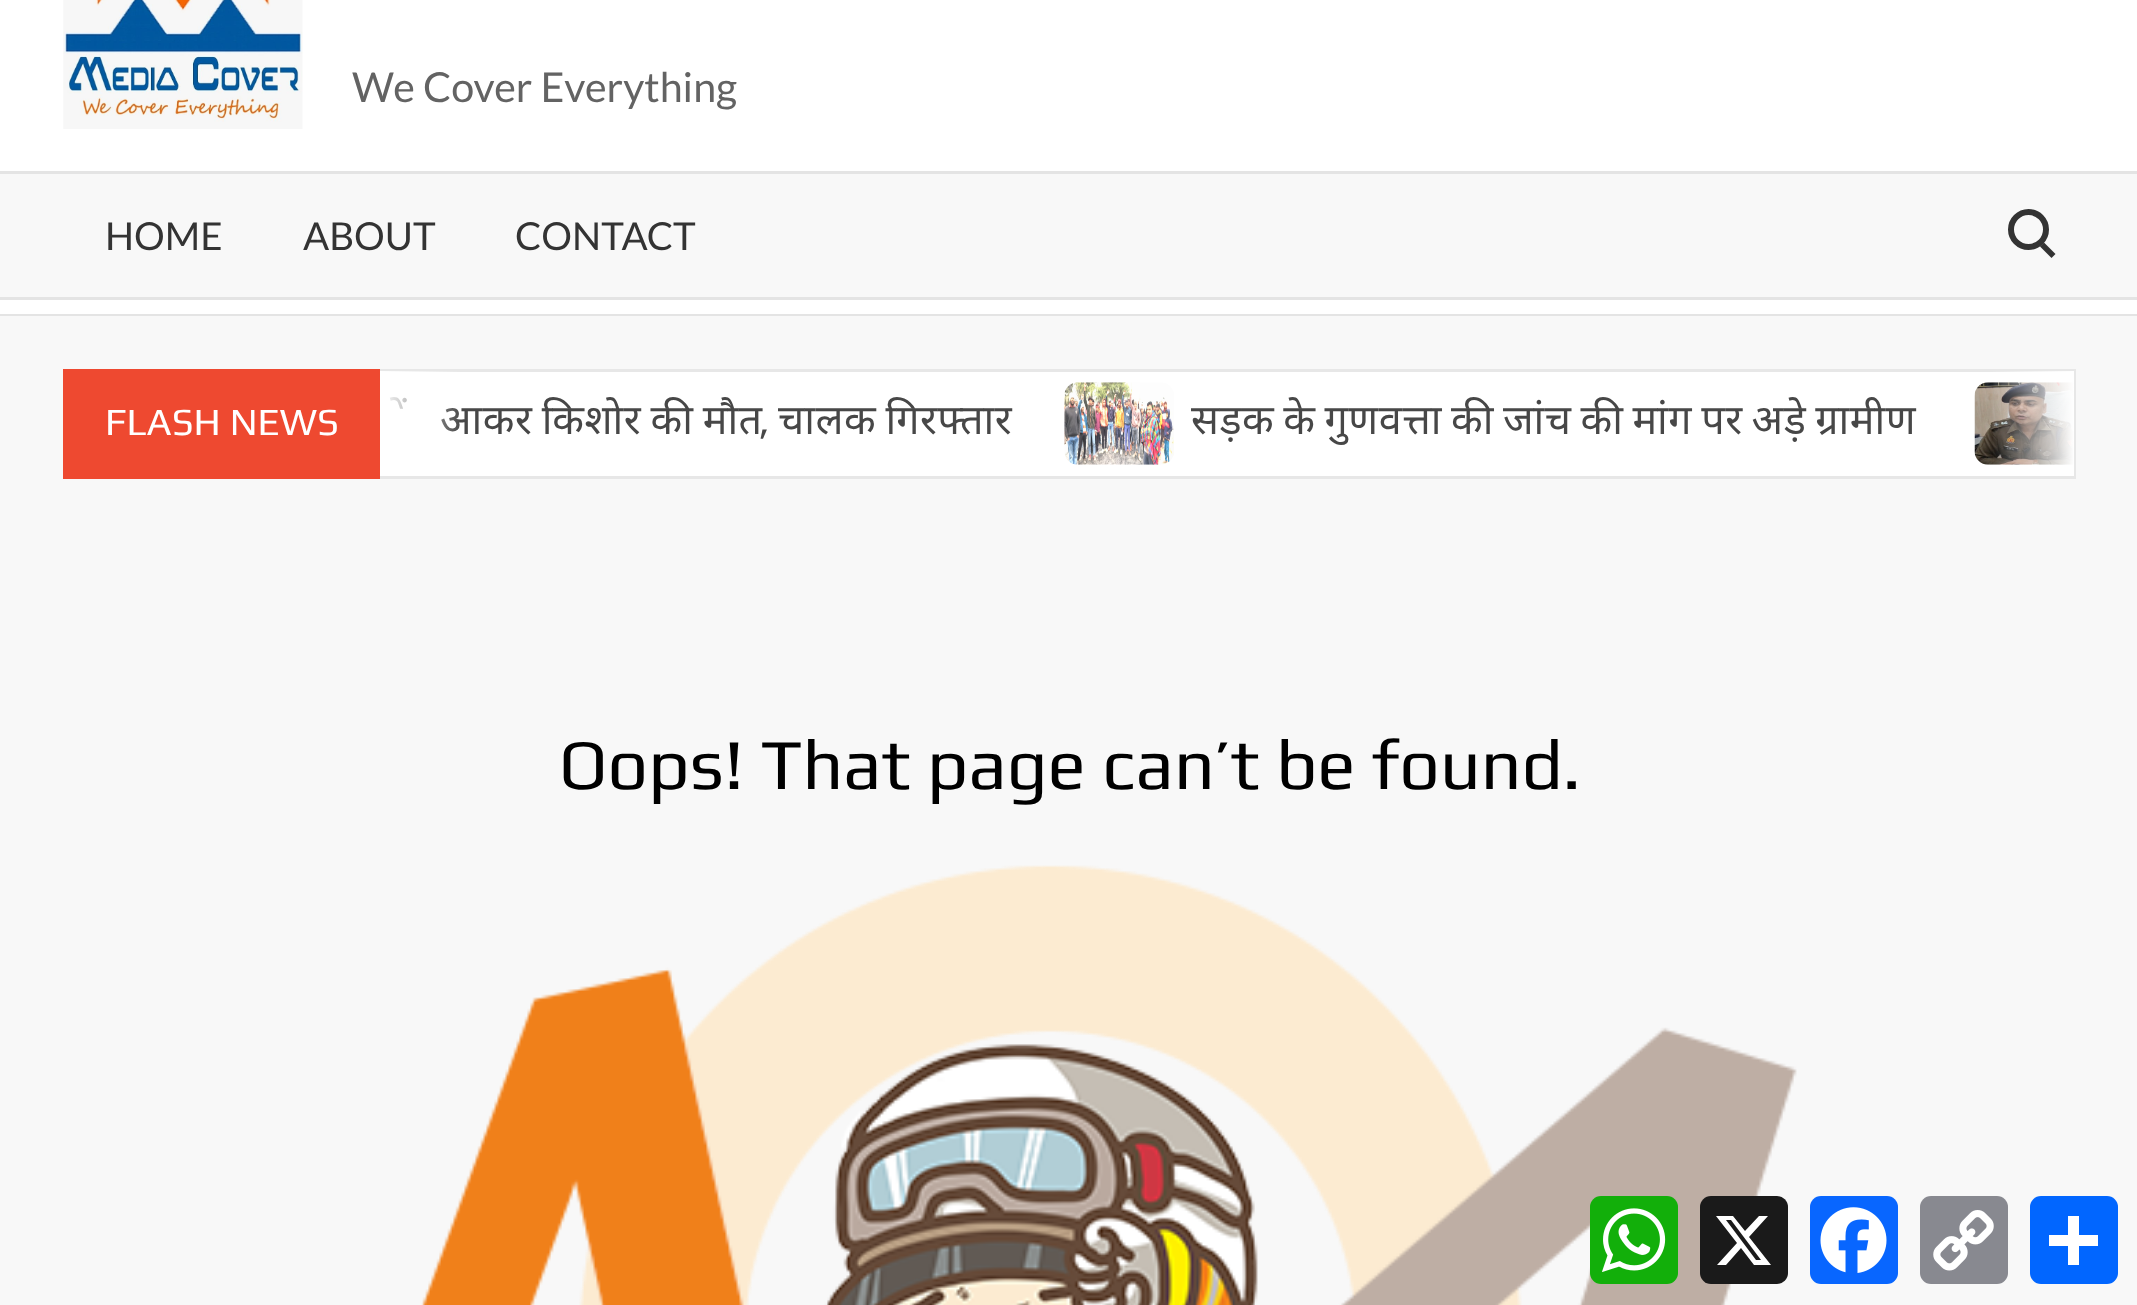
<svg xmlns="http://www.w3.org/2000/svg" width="2137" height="1305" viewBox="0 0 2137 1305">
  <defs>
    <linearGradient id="g1" gradientUnits="userSpaceOnUse" x1="1991" y1="424" x2="2074" y2="424"><stop offset="0" stop-color="#fff" stop-opacity="0"/><stop offset="1" stop-color="#fff"/></linearGradient>
    <linearGradient id="g2" gradientUnits="userSpaceOnUse" x1="380" y1="424" x2="462" y2="424"><stop offset="0" stop-color="#fff"/><stop offset="1" stop-color="#fff" stop-opacity="0"/></linearGradient>
  </defs>
  <rect width="100%" height="100%" fill="#f8f8f8"/>
  <path d="M0 0h2137v171H0z" fill="#fff"/>
  <image x="63" y="0" width="240" height="129" href="img/1.png"/>
  <path d="M0 314V316H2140V173V314Z" fill="#e4e4e4"/>
  <path d="M0 300h2137v14H0z" fill="#fff"/>
  <path d="M0 171h2137v3H0z" fill="#e4e4e4"/>
  <path d="M0 297h2137v3H0z" fill="#e4e4e4"/>
  <circle cx="2028.5" cy="229.5" r="17.5" fill="none" stroke="#333" stroke-width="6"/>
  <path d="M2044 242.5L2055.5 254L2051.5 258L2040 246.5Z" fill="#333"/>
  <path d="M380 372h1693v104H380z" fill="#fff"/>
  <path d="M64.5 370.5h2010v107H64.5z" fill="none" stroke="#e7e7e7" stroke-width="3"/>
  <path d="M63 369h317v110H63z" fill="#ee4930"/>
  <image x="1064" y="382" width="110" height="83" href="img/2.png"/>
  <image x="1974" y="382" width="100" height="83" href="img/3.png"/>
  <path d="M1993 371h81v105H1993z" fill="url(#g1)"/>
  <image x="421" y="865" width="1376" height="440" href="img/4.png"/>
  <rect x="1590" y="1196" width="88" height="88" rx="11" fill="#12af0a"/>
  <image x="1602" y="1208" width="64" height="64" href="img/5.png"/>
  <rect x="1700" y="1196" width="88" height="88" rx="11" fill="#1a1a1a"/>
  <path d="M1759 1216H1768L1749 1237L1771 1265H1754L1741 1248L1726 1265H1717L1737 1243L1716 1216H1733L1745 1231ZM1756 1260H1761L1731 1220H1726Z" fill="#fff"/>
  <rect x="1810" y="1196" width="88" height="88" rx="11" fill="#0866ff"/>
  <image x="1820" y="1207" width="67" height="66" href="img/6.png"/>
  <rect x="1920" y="1196" width="88" height="88" rx="11" fill="#888990"/>
  <image x="1933" y="1210" width="61" height="61" href="img/7.png"/>
  <rect x="2030" y="1196" width="88" height="88" rx="11" fill="#0166ff"/>
  <path d="M2068 1216h11v49H2068z" fill="#fff"/>
  <path d="M2049 1235h49v11H2049z" fill="#fff"/>
  <text x="352" y="102" font-family="Lato" font-size="41.25" fill="#636363">We Cover Everything</text>
  <g font-family="Lato" font-size="38.5" fill="#333">
    <text x="105" y="250">HOME</text>
    <text x="303" y="250">ABOUT</text>
    <text x="515" y="250">CONTACT</text>
  </g>
  <text x="105" y="435" font-family="Play" font-size="38.5" fill="#fff">FLASH NEWS</text>
  <text x="407" y="434" word-spacing="-2" font-family="Noto Sans" font-size="41.25" letter-spacing="0.55" fill="#474747">ें</text>
  <text x="440" y="434" word-spacing="-2" font-family="Noto Sans" font-size="41.25" letter-spacing="0.55" fill="#474747">आकर किशोर की मौत</text>
  <path d="M380 371h80v63H380z" fill="url(#g2)"/>
  <text x="759" y="434" font-family="Play" font-size="41.25" letter-spacing="0.55" fill="#474747">,</text>
  <g font-family="Noto Sans" font-size="41.25" letter-spacing="0.55" fill="#474747">
    <text x="778" y="434" word-spacing="-2">चालक गिरफ्तार</text>
    <text x="1191" y="434" word-spacing="-2.25">सड़क के गुणवत्ता की जांच की मांग पर अड़े ग्रामीण</text>
  </g>
  <text x="559" y="789" font-family="Play" font-size="71.5" fill="#000">Oops! That page can’t be found.</text>
</svg>
